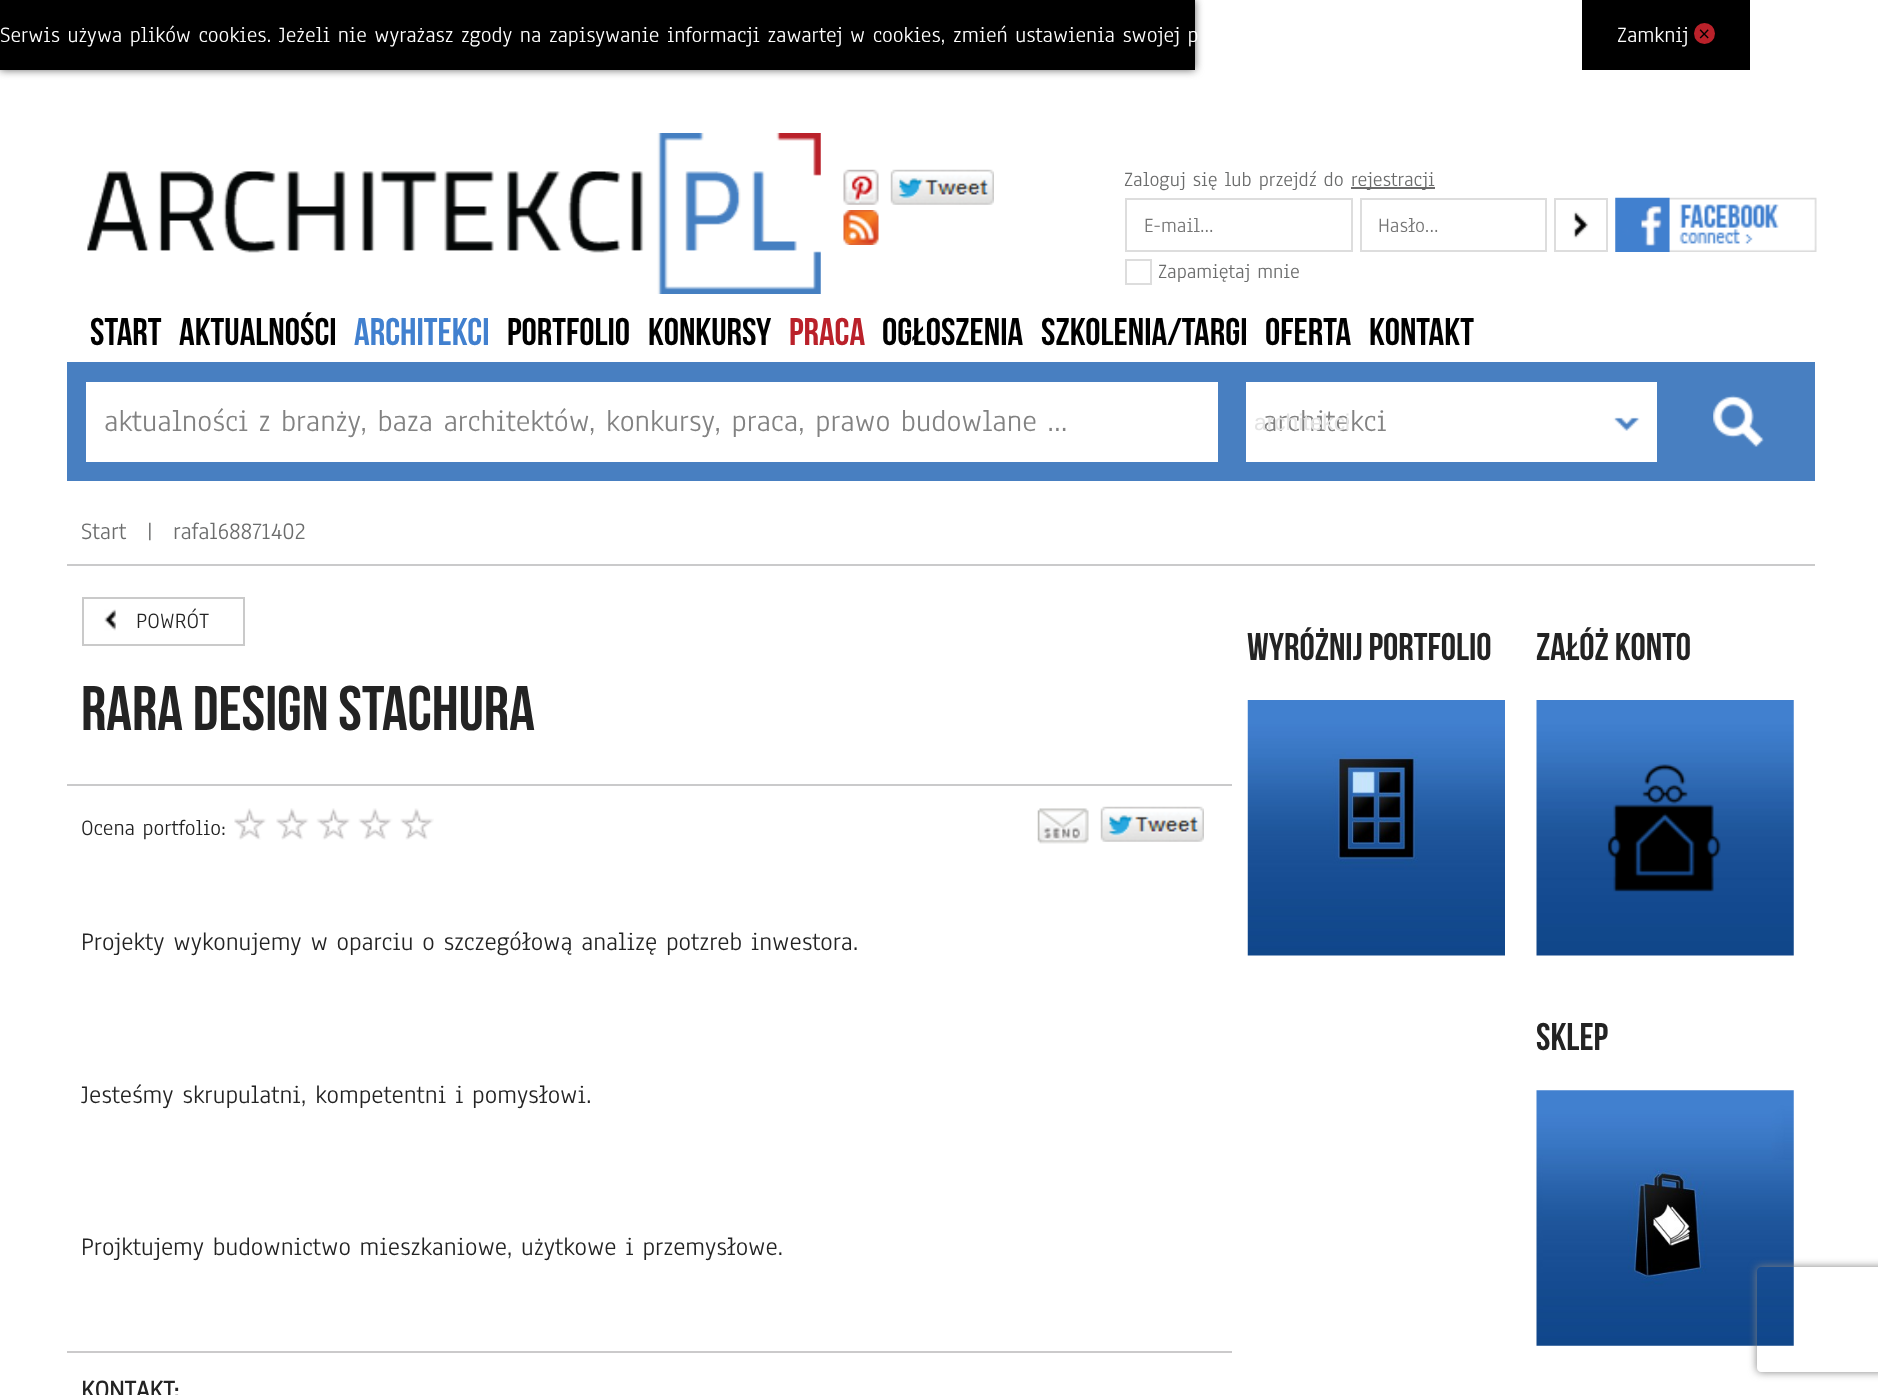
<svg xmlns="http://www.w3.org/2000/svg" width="1878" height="1395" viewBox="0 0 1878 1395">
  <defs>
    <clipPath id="clip1"><path d="M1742 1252H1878V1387H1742ZM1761 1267H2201C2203 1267 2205 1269 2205 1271V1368C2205 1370 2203 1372 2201 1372H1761C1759 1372 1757 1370 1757 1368V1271C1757 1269 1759 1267 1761 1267Z" clip-rule="evenodd"/></clipPath>
  </defs>
  <rect width="100%" height="100%" fill="#fff"/>
  <path d="M0 0h1195v70H0z" fill="#666" filter="blur(4.5px)"/>
  <path d="M0 0h1195v70H0z" fill="#000"/>
  <path d="M1582 0h168v70H1582z" fill="#000"/>
  <circle cx="1704.5" cy="33.5" r="10.5" fill="#ba212a"/>
  <image x="87" y="133" width="734" height="161" href="img/1.png"/>
  <image x="843" y="169" width="36" height="36" href="img/2.png"/>
  <image x="890" y="169" width="104" height="36" href="img/3.png"/>
  <image x="843" y="210" width="36" height="35" href="img/4.png"/>
  <path d="M1351 187h84v2H1351z" fill="#6b6b6b"/>
  <path d="M1126 199h226v52H1126z" fill="none" stroke="#ddd" stroke-width="2"/>
  <path d="M1361 199h185v52H1361z" fill="none" stroke="#ddd" stroke-width="2"/>
  <image x="1573" y="211" width="16" height="28" href="img/5.png"/>
  <path d="M1555 199h52v52H1555z" fill="none" stroke="#ddd" stroke-width="2"/>
  <image x="1615" y="197" width="202" height="55" href="img/6.png"/>
  <path d="M1126 260h25v24H1126z" fill="none" stroke="#ddd" stroke-width="2"/>
  <path d="M67 362h1748v119H67z" fill="#487fc1"/>
  <path d="M86 382h1132v80H86z" fill="#fff"/>
  <path d="M1246 382h411v80H1246z" fill="#fff"/>
  <image x="1613" y="417" width="27" height="14" href="img/7.png"/>
  <image x="1713" y="395" width="51" height="52" href="img/8.png"/>
  <path d="M67 564h1748v2H67z" fill="#cacacb"/>
  <image x="104" y="609" width="12" height="22" href="img/9.png"/>
  <path d="M83 598h161v47H83z" fill="none" stroke="#cacaca" stroke-width="2"/>
  <path d="M67 784h1165v2H67z" fill="#cacacb"/>
  <image x="234" y="808" width="200" height="32" href="img/10.png"/>
  <image x="1037" y="808" width="52" height="36" href="img/11.png"/>
  <image x="1100" y="806" width="104" height="36" href="img/12.png"/>
  <path d="M67 1351h1165v2H67z" fill="#cbcacb"/>
  <image x="1247" y="700" width="258" height="256" href="img/13.png"/>
  <image x="1536" y="700" width="258" height="256" href="img/14.png"/>
  <image x="1536" y="1090" width="258" height="256" href="img/15.png"/>
  <g clip-path="url(#clip1)">
    <rect x="1757" y="1267" width="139" height="105" rx="4" fill="#808080" filter="blur(4.5px)"/>
  </g>
  <g font-family="Anaheim" font-size="22.75" fill="#fff">
    <text x="0" y="42">Serwis używa plików cookies. Jeżeli nie wyrażasz zgody na zapisywanie informacji zawartej w cookies, zmień ustawienia swojej p</text>
    <text x="1617" y="42">Zamknij</text>
  </g>
  <text x="1698" y="42" font-family="Anaheim" font-size="28" fill="#000">×</text>
  <g font-family="Anaheim" font-size="21" fill="#6b6c6c">
    <text x="1124" y="186">Zaloguj się lub przejdź do</text>
    <text x="1351" y="186">rejestracji</text>
  </g>
  <g font-family="Anaheim" font-size="21" fill="#757575">
    <text x="1144" y="232">E-mail...</text>
    <text x="1378" y="232">Hasło...</text>
  </g>
  <text x="1158" y="278" font-family="Anaheim" font-size="21" fill="#6b6c6c">Zapamiętaj mnie</text>
  <g font-family="Bebas Neue" font-size="38.5" fill="#000">
    <text x="90" y="345">Start</text>
    <text x="179" y="345">aktualności</text>
  </g>
  <text x="354" y="345" font-family="Bebas Neue" font-size="38.5" fill="#4180cf">architekci</text>
  <g font-family="Bebas Neue" font-size="38.5" fill="#000">
    <text x="507" y="345">portfolio</text>
    <text x="648" y="345">konkursy</text>
  </g>
  <text x="789" y="345" font-family="Bebas Neue" font-size="38.5" fill="#ba212a">PRACA</text>
  <g font-family="Bebas Neue" font-size="38.5" fill="#000">
    <text x="882" y="345">ogłoszenia</text>
    <text x="1041" y="345">szkolenia/targi</text>
    <text x="1265" y="345">Oferta</text>
    <text x="1369" y="345">Kontakt</text>
  </g>
  <g font-family="Anaheim" font-size="31.5" fill="#828282">
    <text x="104" y="431">aktualności z branży, baza architektów, konkursy, praca, prawo budowlane ...</text>
    <text x="1263" y="431">architekci</text>
  </g>
  <text x="1254" y="430" font-family="Liberation Sans" font-size="22.75" fill="#e4e4e4">architekci</text>
  <g font-family="Anaheim" font-size="24.5" fill="#6b6c6c">
    <text x="81" y="539">Start</text>
    <text x="147" y="539">|</text>
    <text x="173" y="539">rafal68871402</text>
  </g>
  <text x="136" y="628" font-family="Anaheim" font-size="22.75" fill="#232323">POWRÓT</text>
  <text x="81" y="730" font-family="Bebas Neue" font-size="63" fill="#232323">RARA design Stachura</text>
  <text x="81" y="835" font-family="Anaheim" font-size="22.75" fill="#232323">Ocena portfolio:</text>
  <g font-family="Anaheim" font-size="26.25" fill="#232323">
    <text x="81" y="950">Projekty wykonujemy w oparciu o szczegółową analizę potzreb inwestora.</text>
    <text x="81" y="1103">Jesteśmy skrupulatni, kompetentni i pomysłowi.</text>
    <text x="81" y="1255">Projktujemy budownictwo mieszkaniowe, użytkowe i przemysłowe.</text>
  </g>
  <text x="81" y="1398" font-family="Anaheim" font-size="26.25" font-weight="bold" fill="#232323">KONTAKT:</text>
  <g font-family="Bebas Neue" font-size="38.5" fill="#232323">
    <text x="1247" y="660">WYRÓŻNIJ PORTFOLIO</text>
    <text x="1536" y="660">ZAŁÓŻ KONTO</text>
    <text x="1536" y="1050">SKLEP</text>
  </g>
</svg>
